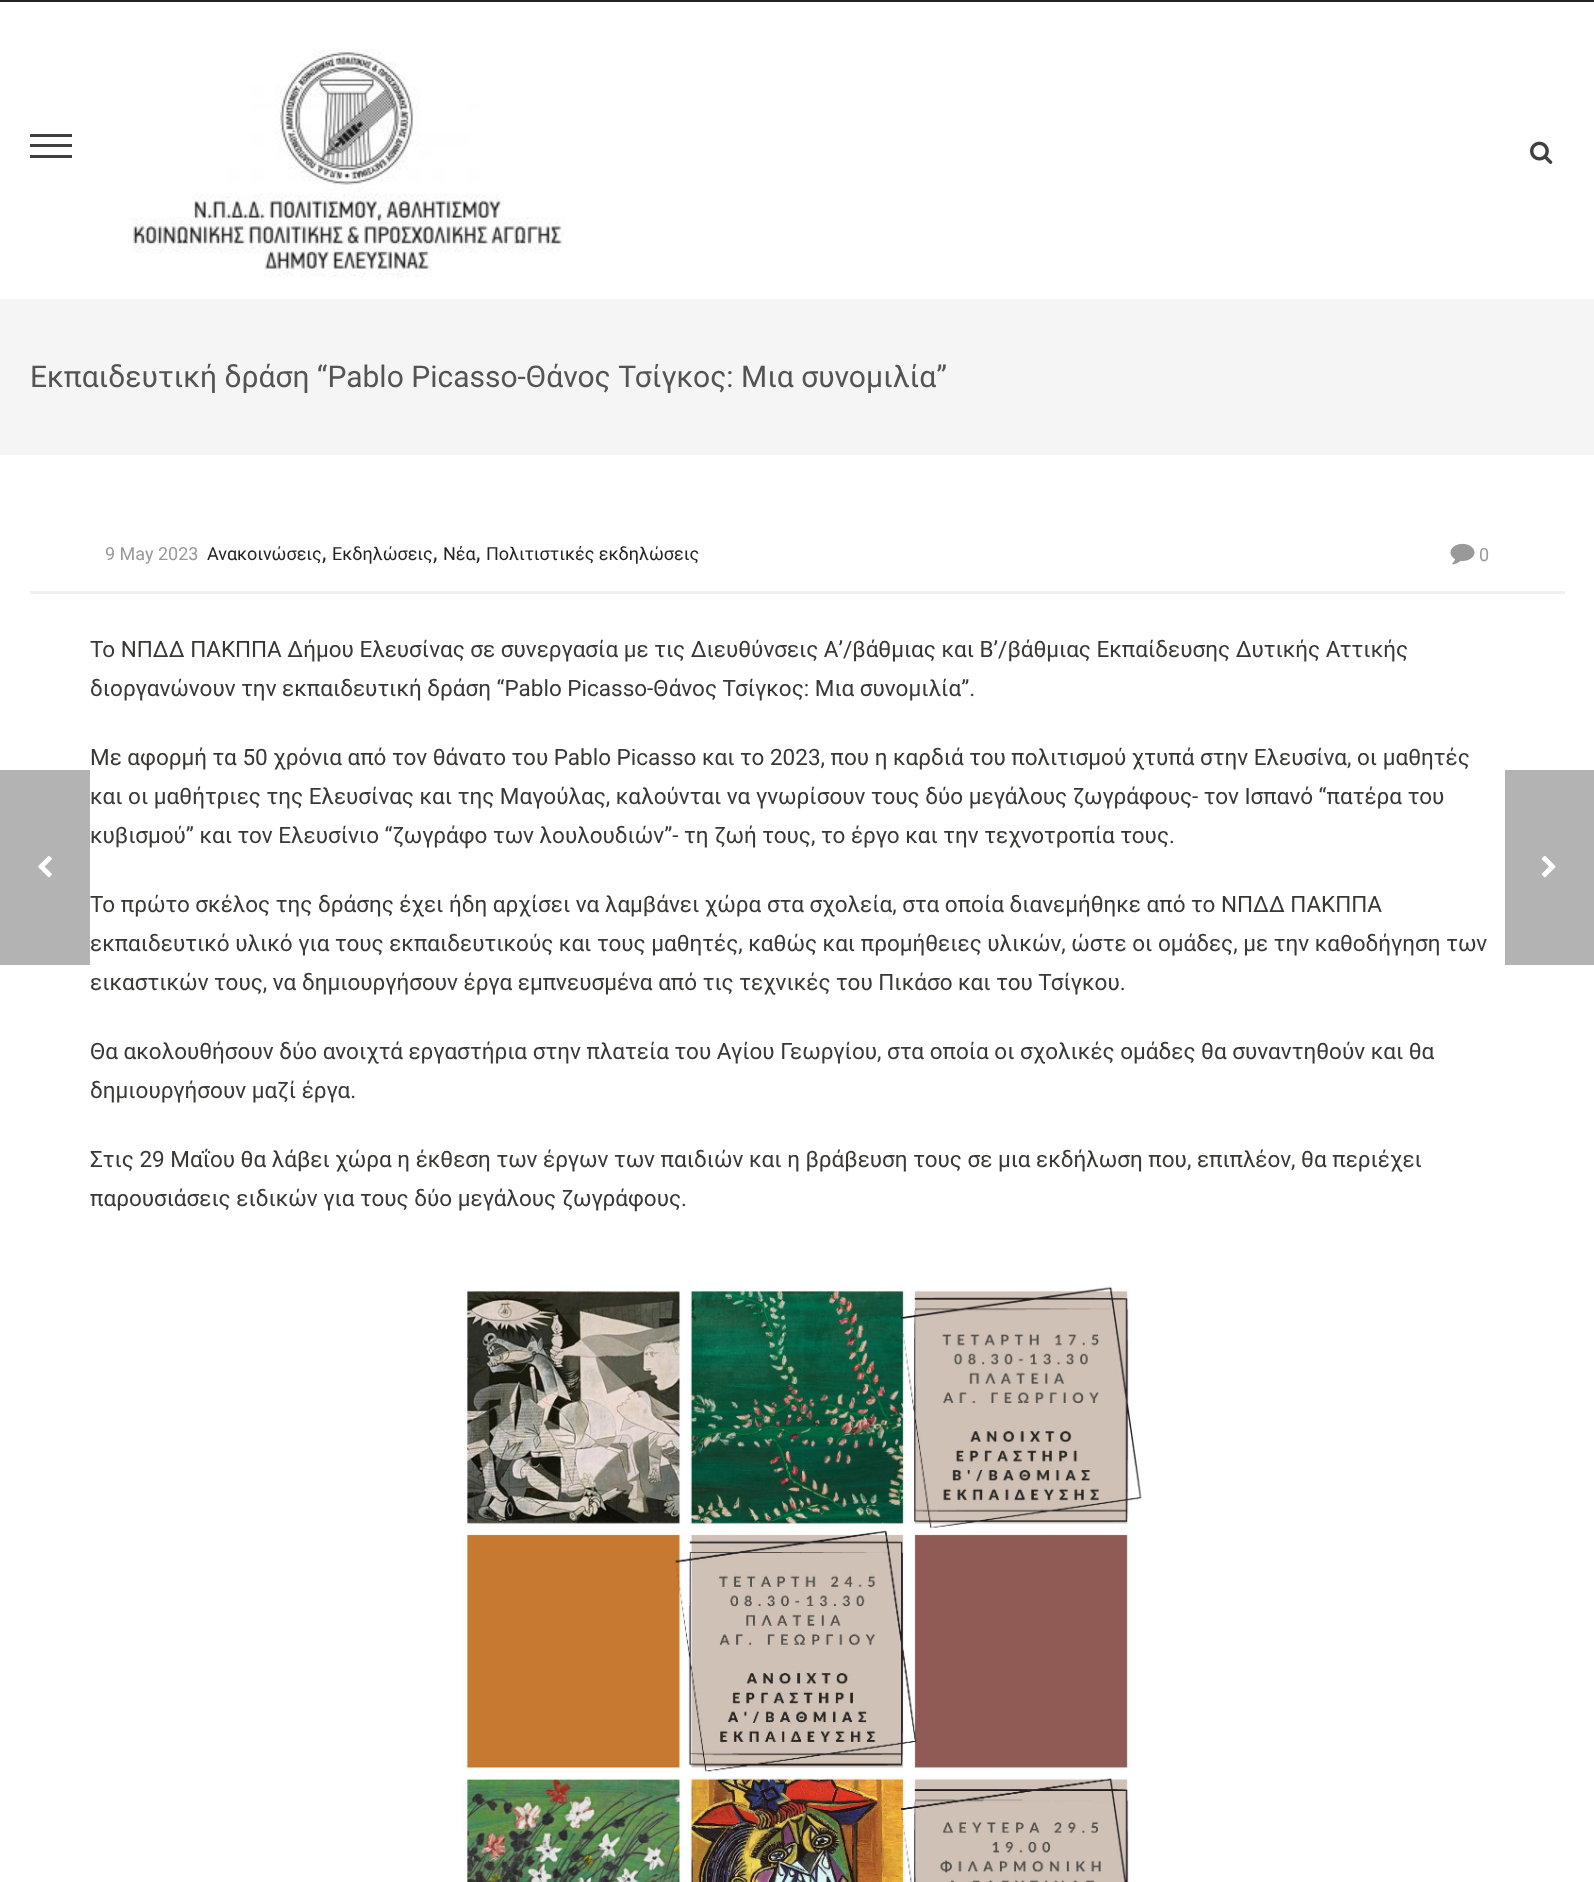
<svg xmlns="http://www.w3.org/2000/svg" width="1594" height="1882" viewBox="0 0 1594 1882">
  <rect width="100%" height="100%" fill="#fff"/>
  <path d="M0 0h1594v2H0z" fill="#232323"/>
  <path d="M30 134h42v3H30z" fill="#3f3f3f"/>
  <path d="M30 144h42v3H30z" fill="#3f3f3f"/>
  <path d="M30 155h42v3H30z" fill="#3f3f3f"/>
  <image x="132" y="49" width="432" height="229" href="img/1.png"/>
  <image x="1530" y="141" width="23" height="23" href="img/2.png"/>
  <path d="M0 299h1594v156H0z" fill="#f5f5f5"/>
  <image x="1450" y="543" width="25" height="22" href="img/3.png"/>
  <path d="M30 591h1535v3H30z" fill="#f0f0f0"/>
  <image x="461" y="1286" width="681" height="596" href="img/4.png"/>
  <path d="M0 770h90v195H0z" fill="#b3b3b3"/>
  <image x="38" y="855" width="14" height="23" href="img/5.png"/>
  <path d="M1505 770h89v195H1505z" fill="#b3b3b3"/>
  <image x="1541" y="855" width="15" height="23" href="img/6.png"/>
  <text x="30" y="387" font-family="Roboto" font-size="30" fill="#545454">Εκπαιδευτική δράση “Pablo Picasso-Θάνος Τσίγκος: Μια συνομιλία”</text>
  <text x="105" y="560" font-family="Roboto" font-size="18" fill="#999">9 May 2023</text>
  <text x="207" y="560" font-family="Roboto" font-size="18" fill="#232323">Ανακοινώσεις</text>
  <text x="322" y="560" font-family="Roboto" font-size="22.5" fill="#232323">,</text>
  <text x="332" y="560" font-family="Roboto" font-size="18" fill="#232323">Εκδηλώσεις</text>
  <text x="433" y="560" font-family="Roboto" font-size="22.5" fill="#232323">,</text>
  <text x="443" y="560" font-family="Roboto" font-size="18" fill="#232323">Νέα</text>
  <text x="476" y="560" font-family="Roboto" font-size="22.5" fill="#232323">,</text>
  <text x="486" y="560" font-family="Roboto" font-size="18" fill="#232323">Πολιτιστικές εκδηλώσεις</text>
  <text x="1479" y="561" font-family="Roboto" font-size="18" fill="#999">0</text>
  <g font-family="Roboto" font-size="22.5" fill="#393836">
    <text x="90" y="657">Το ΝΠΔΔ ΠΑΚΠΠΑ Δήμου Ελευσίνας σε συνεργασία με τις Διευθύνσεις Α’/βάθμιας και Β’/βάθμιας Εκπαίδευσης Δυτικής Αττικής</text>
    <text x="90" y="696">διοργανώνουν την εκπαιδευτική δράση “Pablo Picasso-Θάνος Τσίγκος: Μια συνομιλία”.</text>
    <text x="90" y="765">Με αφορμή τα 50 χρόνια από τον θάνατο του Pablo Picasso και το 2023, που η καρδιά του πολιτισμού χτυπά στην Ελευσίνα, οι μαθητές</text>
    <text x="90" y="804">και οι μαθήτριες της Ελευσίνας και της Μαγούλας, καλούνται να γνωρίσουν τους δύο μεγάλους ζωγράφους- τον Ισπανό “πατέρα του</text>
    <text x="90" y="843">κυβισμού” και τον Ελευσίνιο “ζωγράφο των λουλουδιών”- τη ζωή τους, το έργο και την τεχνοτροπία τους.</text>
    <text x="90" y="912">Το πρώτο σκέλος της δράσης έχει ήδη αρχίσει να λαμβάνει χώρα στα σχολεία, στα οποία διανεμήθηκε από το ΝΠΔΔ ΠΑΚΠΠΑ</text>
    <text x="90" y="951">εκπαιδευτικό υλικό για τους εκπαιδευτικούς και τους μαθητές, καθώς και προμήθειες υλικών, ώστε οι ομάδες, με την καθοδήγηση των</text>
    <text x="90" y="990">εικαστικών τους, να δημιουργήσουν έργα εμπνευσμένα από τις τεχνικές του Πικάσο και του Τσίγκου.</text>
    <text x="90" y="1059">Θα ακολουθήσουν δύο ανοιχτά εργαστήρια στην πλατεία του Αγίου Γεωργίου, στα οποία οι σχολικές ομάδες θα συναντηθούν και θα</text>
    <text x="90" y="1098">δημιουργήσουν μαζί έργα.</text>
    <text x="90" y="1167">Στις 29 Μαΐου θα λάβει χώρα η έκθεση των έργων των παιδιών και η βράβευση τους σε μια εκδήλωση που, επιπλέον, θα περιέχει</text>
    <text x="90" y="1206">παρουσιάσεις ειδικών για τους δύο μεγάλους ζωγράφους.</text>
  </g>
</svg>
